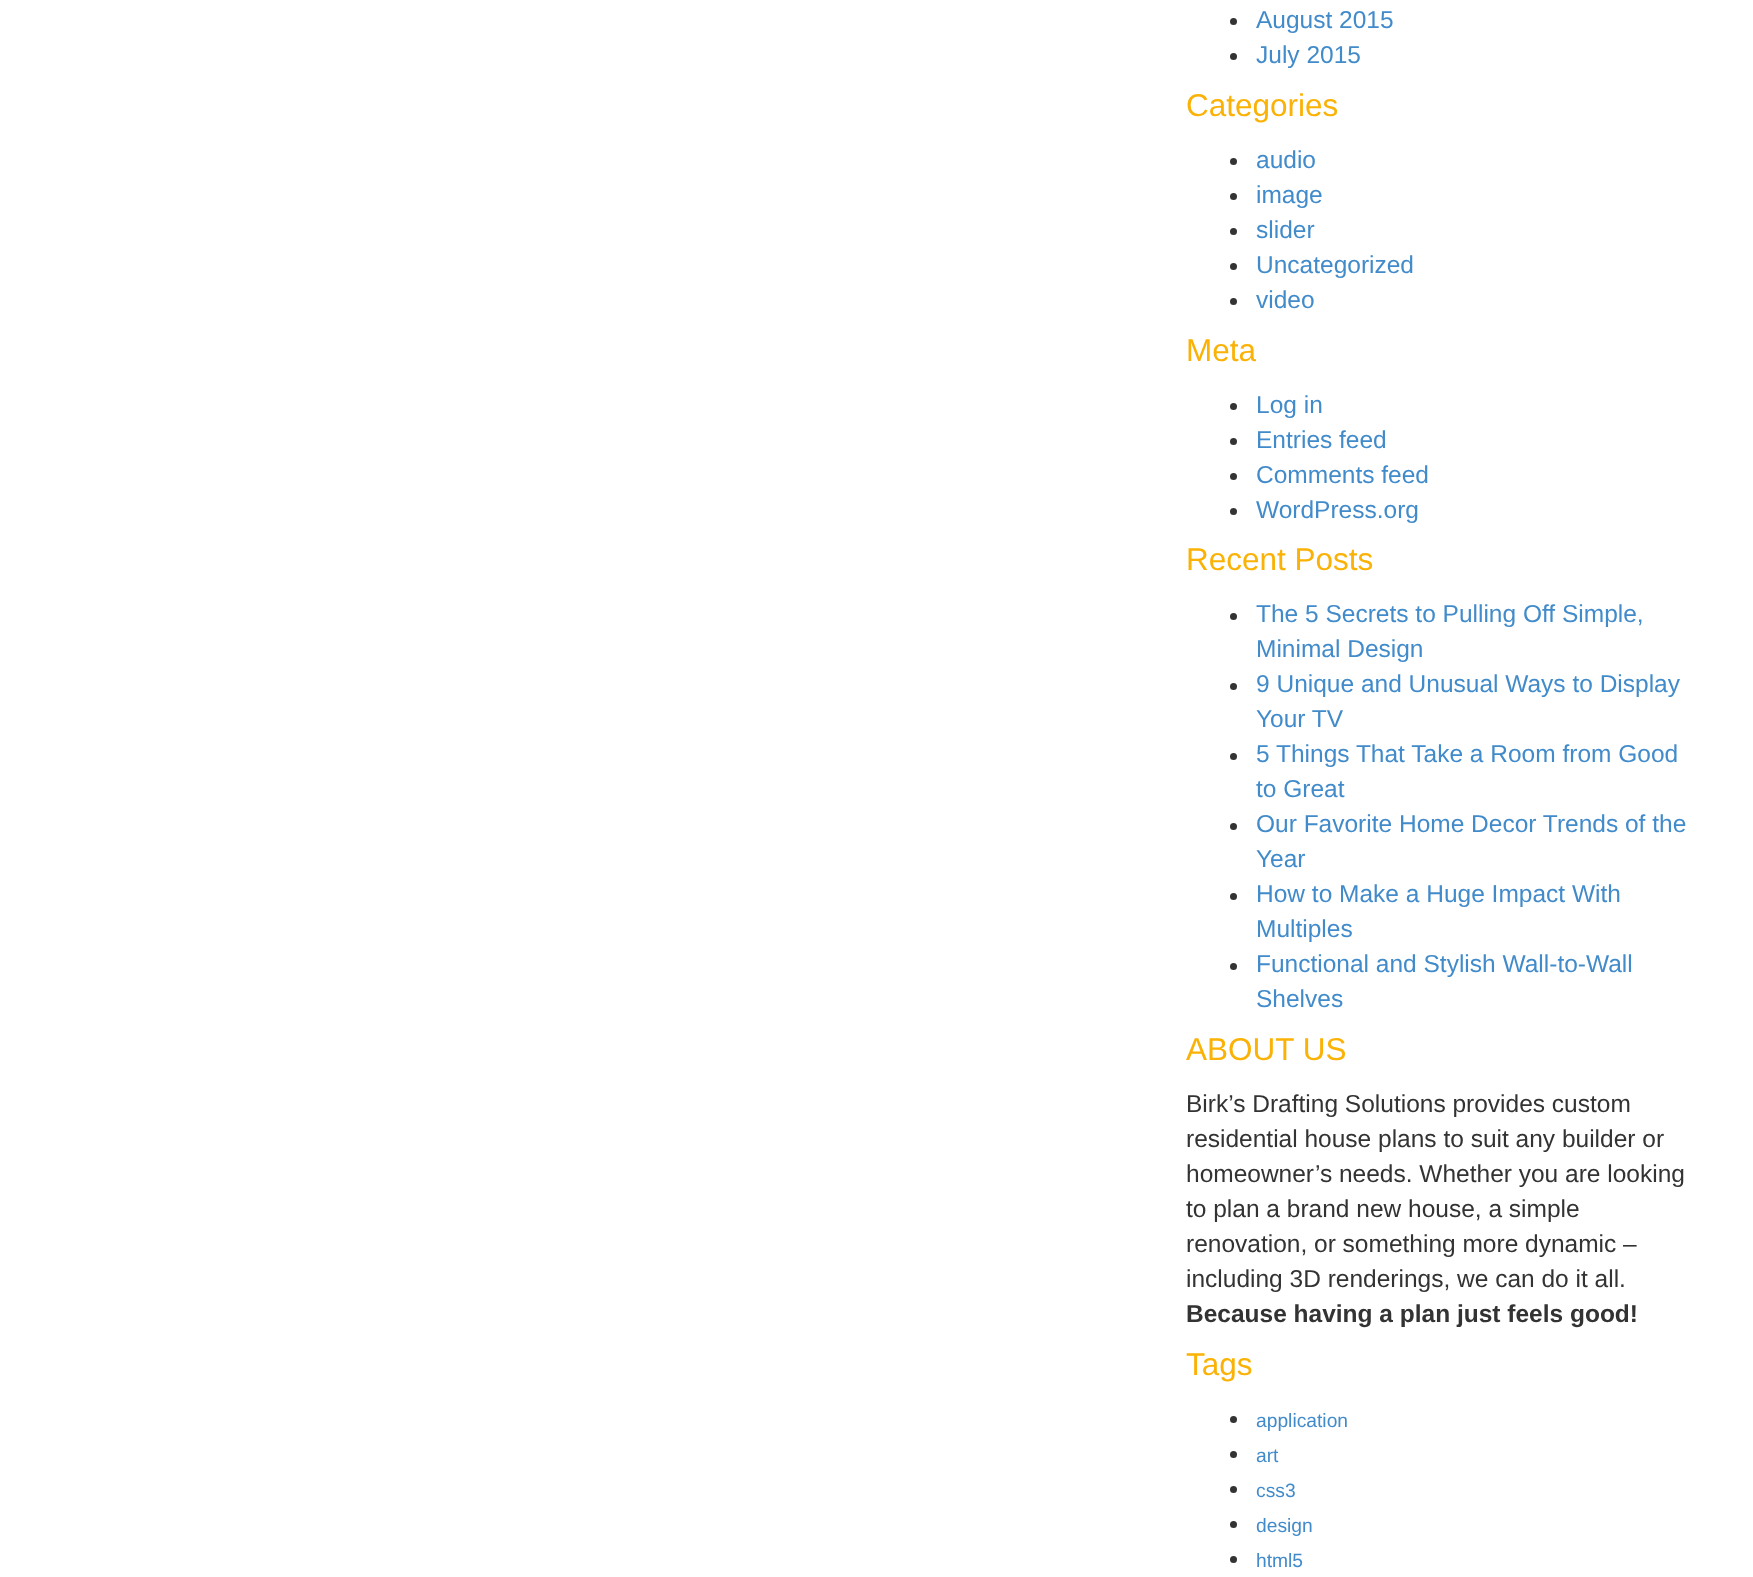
<svg xmlns="http://www.w3.org/2000/svg" width="1753" height="1577" viewBox="0 0 1753 1577">
  <rect width="100%" height="100%" fill="#fff"/>
  <circle cx="1233.5" cy="21.5" r="3.5" fill="#333"/>
  <circle cx="1233.5" cy="56.5" r="3.5" fill="#333"/>
  <circle cx="1233.5" cy="161.5" r="3.5" fill="#333"/>
  <circle cx="1233.5" cy="196.5" r="3.5" fill="#333"/>
  <circle cx="1233.5" cy="231.5" r="3.5" fill="#333"/>
  <circle cx="1233.5" cy="266.5" r="3.5" fill="#333"/>
  <circle cx="1233.5" cy="301.5" r="3.5" fill="#333"/>
  <circle cx="1233.5" cy="406.5" r="3.5" fill="#333"/>
  <circle cx="1233.5" cy="441.5" r="3.5" fill="#333"/>
  <circle cx="1233.5" cy="476.5" r="3.5" fill="#333"/>
  <circle cx="1233.5" cy="511.5" r="3.5" fill="#333"/>
  <circle cx="1233.5" cy="616.5" r="3.5" fill="#333"/>
  <circle cx="1233.5" cy="686.5" r="3.5" fill="#333"/>
  <circle cx="1233.5" cy="756.5" r="3.5" fill="#333"/>
  <circle cx="1233.5" cy="826.5" r="3.5" fill="#333"/>
  <circle cx="1233.5" cy="896.5" r="3.5" fill="#333"/>
  <circle cx="1233.5" cy="966.5" r="3.5" fill="#333"/>
  <circle cx="1233.5" cy="1419.5" r="3.5" fill="#333"/>
  <circle cx="1233.5" cy="1454.5" r="3.5" fill="#333"/>
  <circle cx="1233.5" cy="1489.5" r="3.5" fill="#333"/>
  <circle cx="1233.5" cy="1524.5" r="3.5" fill="#333"/>
  <circle cx="1233.5" cy="1559.5" r="3.5" fill="#333"/>
  <g font-family="Liberation Sans" font-size="24.5" fill="#428bca">
    <text x="1256" y="28">August 2015</text>
    <text x="1256" y="63">July 2015</text>
  </g>
  <text x="1186" y="116" font-family="Liberation Sans" font-size="31.5" fill="#fab207">Categories</text>
  <g font-family="Liberation Sans" font-size="24.5" fill="#428bca">
    <text x="1256" y="168">audio</text>
    <text x="1256" y="203">image</text>
    <text x="1256" y="238">slider</text>
    <text x="1256" y="273">Uncategorized</text>
    <text x="1256" y="308">video</text>
  </g>
  <text x="1186" y="361" font-family="Liberation Sans" font-size="31.5" fill="#fab207">Meta</text>
  <g font-family="Liberation Sans" font-size="24.5" fill="#428bca">
    <text x="1256" y="413">Log in</text>
    <text x="1256" y="448">Entries feed</text>
    <text x="1256" y="483">Comments feed</text>
    <text x="1256" y="518">WordPress.org</text>
  </g>
  <text x="1186" y="570" font-family="Liberation Sans" font-size="31.5" fill="#fab207">Recent Posts</text>
  <g font-family="Liberation Sans" font-size="24.5" fill="#428bca">
    <text x="1256" y="622">The 5 Secrets to Pulling Off Simple,</text>
    <text x="1256" y="657">Minimal Design</text>
    <text x="1256" y="692">9 Unique and Unusual Ways to Display</text>
    <text x="1256" y="727">Your TV</text>
    <text x="1256" y="762">5 Things That Take a Room from Good</text>
    <text x="1256" y="797">to Great</text>
    <text x="1256" y="832">Our Favorite Home Decor Trends of the</text>
    <text x="1256" y="867">Year</text>
    <text x="1256" y="902">How to Make a Huge Impact With</text>
    <text x="1256" y="937">Multiples</text>
    <text x="1256" y="972">Functional and Stylish Wall-to-Wall</text>
    <text x="1256" y="1007">Shelves</text>
  </g>
  <text x="1186" y="1060" font-family="Liberation Sans" font-size="31.5" fill="#fab207">ABOUT US</text>
  <g font-family="Liberation Sans" font-size="24.5" fill="#333">
    <text x="1186" y="1112">Birk’s Drafting Solutions provides custom</text>
    <text x="1186" y="1147">residential house plans to suit any builder or</text>
    <text x="1186" y="1182">homeowner’s needs. Whether you are looking</text>
    <text x="1186" y="1217">to plan a brand new house, a simple</text>
    <text x="1186" y="1252">renovation, or something more dynamic –</text>
    <text x="1186" y="1287">including 3D renderings, we can do it all.</text>
  </g>
  <text x="1186" y="1322" font-family="Liberation Sans" font-size="24.5" font-weight="bold" fill="#333">Because having a plan just feels good!</text>
  <text x="1186" y="1375" font-family="Liberation Sans" font-size="31.5" fill="#fab207">Tags</text>
  <g font-family="Liberation Sans" font-size="19.25" fill="#428bca">
    <text x="1256" y="1427">application</text>
    <text x="1256" y="1462">art</text>
    <text x="1256" y="1497">css3</text>
    <text x="1256" y="1532">design</text>
    <text x="1256" y="1567">html5</text>
  </g>
</svg>
